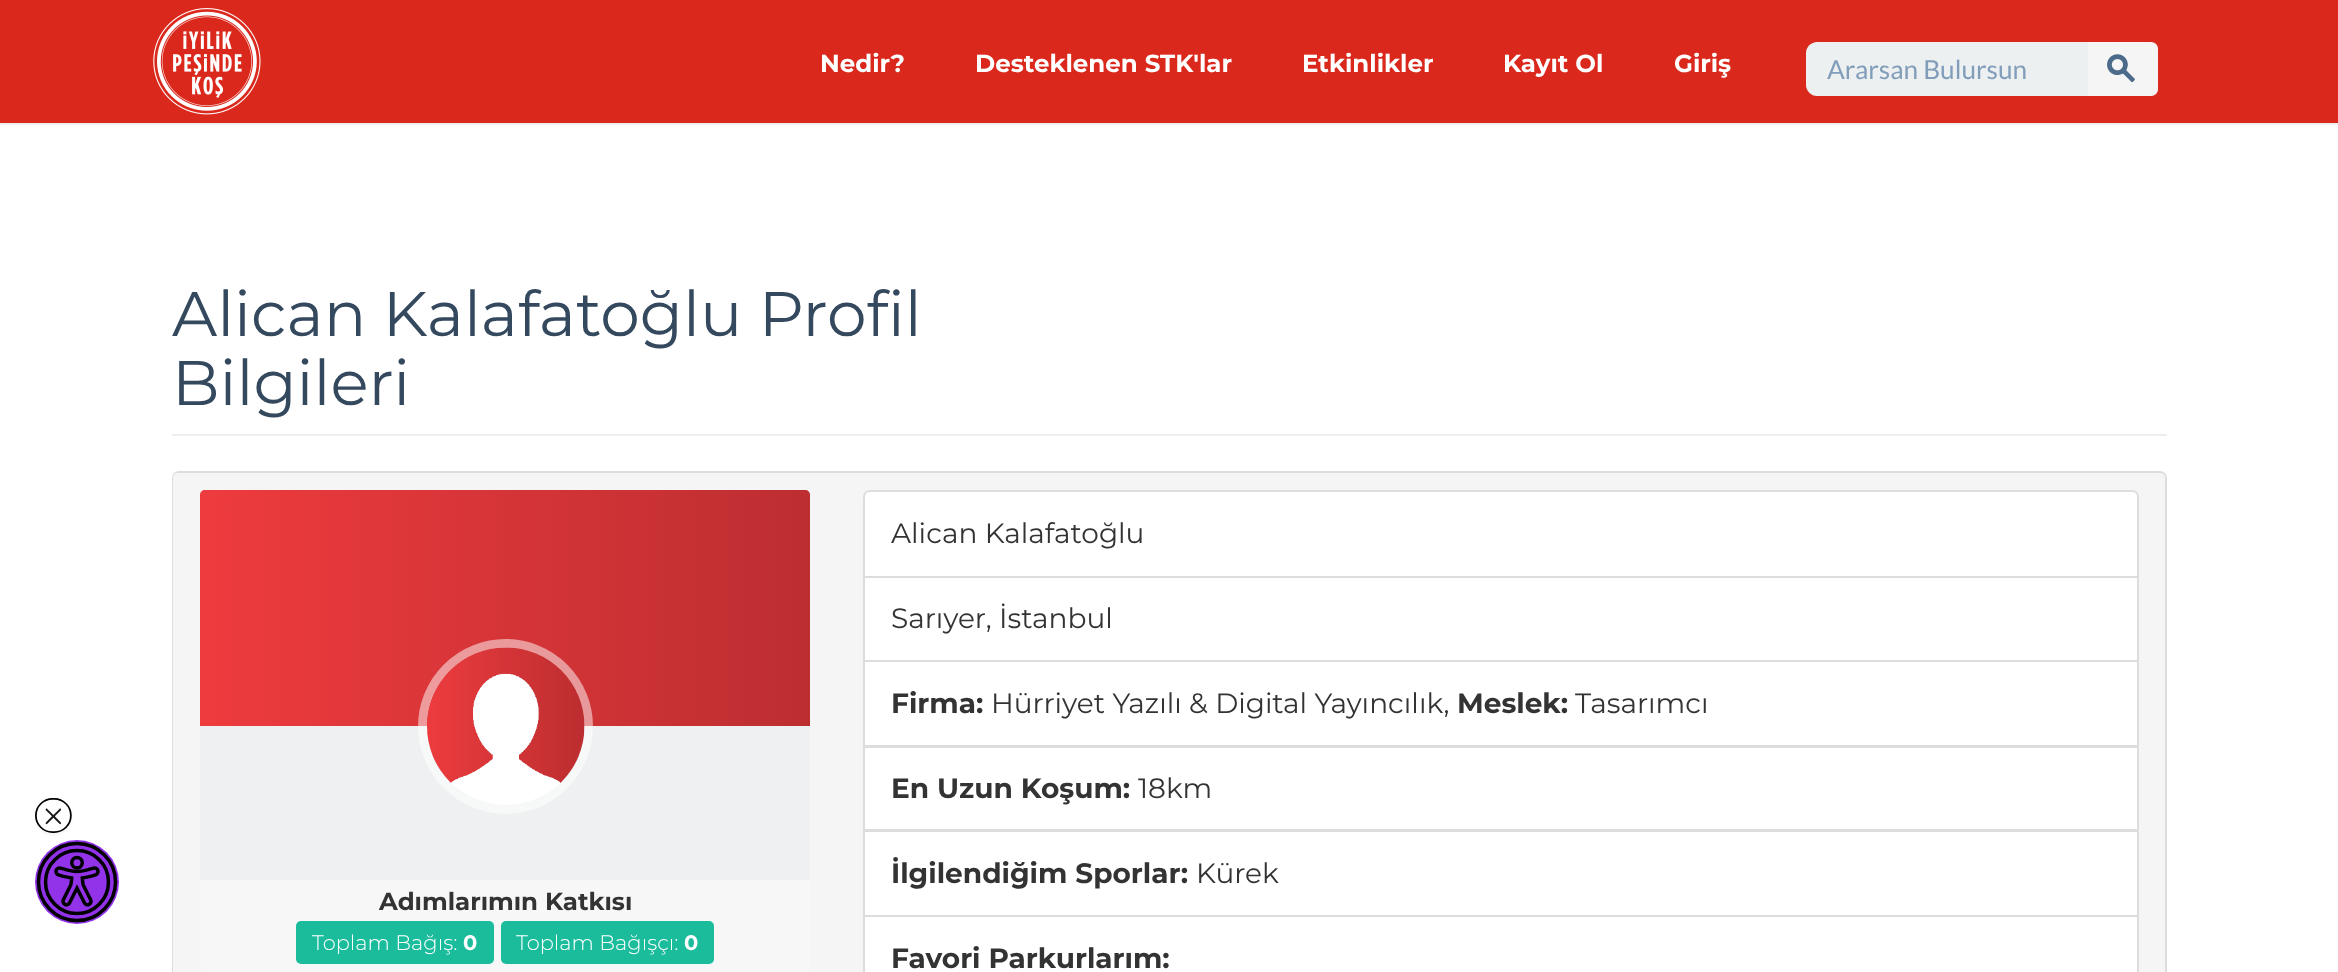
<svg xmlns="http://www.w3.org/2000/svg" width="2338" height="972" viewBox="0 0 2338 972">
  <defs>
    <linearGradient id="g1" gradientUnits="userSpaceOnUse" x1="200" y1="608" x2="810" y2="608"><stop offset="0" stop-color="#ee3b3e"/><stop offset="1" stop-color="#bd2e31"/></linearGradient>
  </defs>
  <rect width="100%" height="100%" fill="#fff"/>
  <path d="M0 0h2338v123H0z" fill="#da291c"/>
  <path d="M0 123h2338v2H0z" fill="#ecf0f1"/>
  <image x="153" y="8" width="108" height="107" href="img/1.png"/>
  <path d="M1817 42H2091V96H1817C1811 96 1806 91 1806 85V53C1806 47 1811 42 1817 42Z" fill="#ecf0f1"/>
  <path d="M2088 42H2151C2155 42 2158 45 2158 49V89C2158 93 2155 96 2151 96H2088Z" fill="#f5f5f5"/>
  <image x="2107" y="54" width="28" height="29" href="img/2.png"/>
  <image x="35" y="798" width="84" height="126" href="img/3.png"/>
  <path d="M172 434h1995v2H172z" fill="#eee"/>
  <rect x="173" y="472" width="1993" height="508" rx="6" fill="none" stroke="#ddd" stroke-width="2"/>
  <path d="M178 473H2160C2163 473 2165 475 2165 478V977H173V478C173 475 175 473 178 473Z" fill="#f5f5f5"/>
  <rect x="200" y="490" width="610" height="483" rx="5" fill="#eef0f1"/>
  <path d="M205 490H805C808 490 810 492 810 495V726H200V495C200 492 202 490 205 490Z" fill="url(#g1)"/>
  <circle cx="505.5" cy="726.5" r="83" fill="none" stroke="#ffffff80" stroke-width="9"/>
  <image x="427" y="647" width="158" height="158" href="img/4.png"/>
  <path d="M200 880H810V968C810 971 808 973 805 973H205C202 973 200 971 200 968Z" fill="#f7f7f8"/>
  <rect x="296" y="921" width="198" height="43" rx="5" fill="#1abc9c"/>
  <rect x="501" y="921" width="213" height="43" rx="5" fill="#1abc9c"/>
  <path d="M870 491H2132C2135.5 491 2138 493.5 2138 497V577H864V497C864 493.5 866.5 491 870 491Z" fill="#fff" stroke="#ddd" stroke-width="2"/>
  <path d="M864 577h1274v84H864z" fill="#fff" stroke="#ddd" stroke-width="2"/>
  <path d="M864 661h1274v85H864z" fill="#fff" stroke="#ddd" stroke-width="2"/>
  <path d="M864 747h1274v83H864z" fill="#fff" stroke="#ddd" stroke-width="2"/>
  <path d="M864 831h1274v85H864z" fill="#fff" stroke="#ddd" stroke-width="2"/>
  <path d="M864 916h1274v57H864z" fill="#fff" stroke="#ddd" stroke-width="2"/>
  <g font-family="Montserrat" font-size="24.5" font-weight="bold" fill="#fff">
    <text x="820" y="72">Nedir?</text>
    <text x="975" y="72">Desteklenen STK'lar</text>
    <text x="1302" y="72">Etkinlikler</text>
    <text x="1503" y="72">Kayıt Ol</text>
    <text x="1674" y="72">Giriş</text>
  </g>
  <text x="1827" y="79" font-family="Lato" font-size="26.25" fill="#819db9">Ararsan Bulursun</text>
  <g font-family="Montserrat" font-size="63" fill="#34495e">
    <text x="172" y="336">Alican Kalafatoğlu Profil</text>
    <text x="172" y="405">Bilgileri</text>
  </g>
  <text x="379" y="910" font-family="Montserrat" font-size="24.5" font-weight="bold" fill="#333">Adımlarımın Katkısı</text>
  <text x="312" y="950" font-family="Montserrat" font-size="21" font-weight="300" fill="#fff">Toplam Bağış:</text>
  <text x="463" y="950" font-family="Montserrat" font-size="21" font-weight="bold" fill="#fff">0</text>
  <text x="516" y="950" font-family="Montserrat" font-size="21" font-weight="300" fill="#fff">Toplam Bağışçı:</text>
  <text x="684" y="950" font-family="Montserrat" font-size="21" font-weight="bold" fill="#fff">0</text>
  <g font-family="Montserrat" font-size="28" fill="#333">
    <text x="891" y="543">Alican Kalafatoğlu</text>
    <text x="891" y="628">Sarıyer, İstanbul</text>
  </g>
  <text x="891" y="713" font-family="Montserrat" font-size="28" font-weight="bold" fill="#333">Firma:</text>
  <text x="991" y="713" font-family="Montserrat" font-size="28" fill="#333">Hürriyet Yazılı &amp; Digital Yayıncılık,</text>
  <text x="1457" y="713" font-family="Montserrat" font-size="28" font-weight="bold" fill="#333">Meslek:</text>
  <text x="1575" y="713" font-family="Montserrat" font-size="28" fill="#333">Tasarımcı</text>
  <text x="891" y="798" font-family="Montserrat" font-size="28" font-weight="bold" fill="#333">En Uzun Koşum:</text>
  <text x="1138" y="798" font-family="Montserrat" font-size="28" fill="#333">18km</text>
  <text x="891" y="883" font-family="Montserrat" font-size="28" font-weight="bold" fill="#333">İlgilendiğim Sporlar:</text>
  <text x="1196" y="883" font-family="Montserrat" font-size="28" fill="#333">Kürek</text>
  <text x="891" y="968" font-family="Montserrat" font-size="28" font-weight="bold" fill="#333">Favori Parkurlarım:</text>
</svg>
